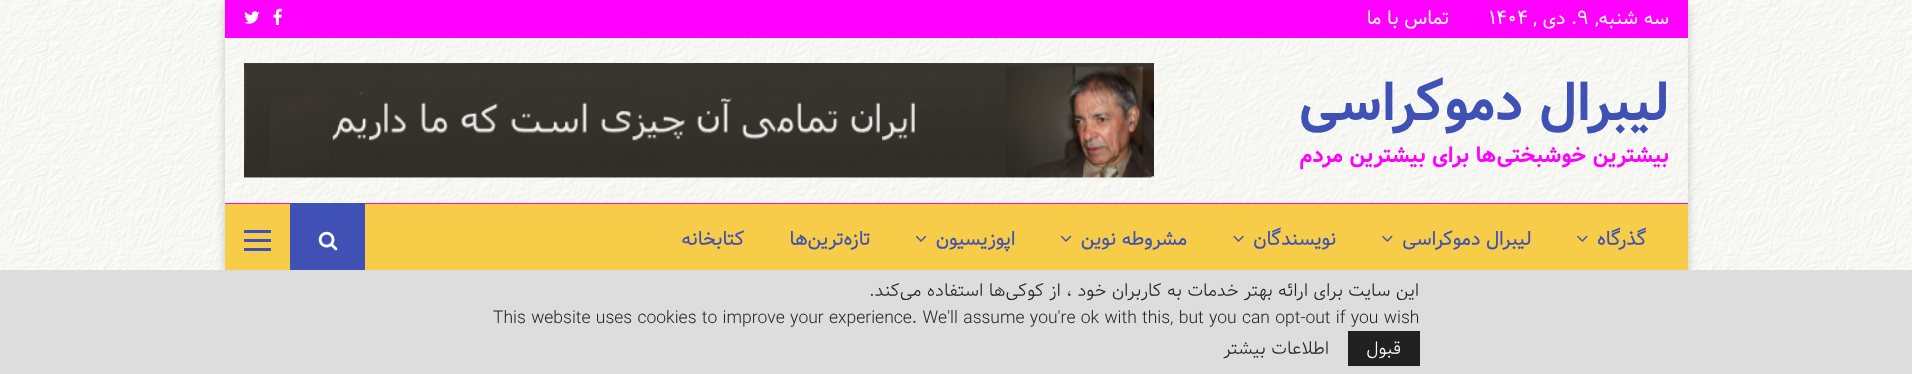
<svg xmlns="http://www.w3.org/2000/svg" width="1912" height="374" viewBox="0 0 1912 374">
  <rect width="100%" height="100%" fill="#fff"/>
  <image x="0" y="0" width="1912" height="270" href="img/1.png"/>
  <path d="M225 6h1463v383H225z" fill="#00000033" filter="blur(5px)"/>
  <image x="1687" y="38" width="1" height="165" href="img/2.png"/>
  <path d="M225 0h1463v38H225z" fill="#f0f"/>
  <image x="273" y="8" width="9" height="17" href="img/3.png"/>
  <image x="244" y="11" width="16" height="13" href="img/4.png"/>
  <image x="225" y="38" width="1463" height="165" href="img/5.png"/>
  <image x="244" y="63" width="910" height="115" href="img/6.png"/>
  <path d="M225 204h1463v66H225z" fill="#f7cc48"/>
  <path d="M225 203h1463v1H225z" fill="#f0f"/>
  <image x="1577" y="235" width="11" height="7" href="img/7.png"/>
  <image x="1382" y="235" width="11" height="7" href="img/7.png"/>
  <image x="1233" y="235" width="11" height="7" href="img/8.png"/>
  <image x="1060" y="235" width="12" height="7" href="img/9.png"/>
  <image x="915" y="235" width="12" height="7" href="img/9.png"/>
  <path d="M290 203h75v67H290z" fill="#3f51b5"/>
  <image x="318" y="231" width="20" height="20" href="img/10.png"/>
  <path d="M244 230h27v3H244z" fill="#3f51b5"/>
  <path d="M244 248h27v3H244z" fill="#3f51b5"/>
  <path d="M244 239h27v3H244z" fill="#3f51b5"/>
  <path d="M0 270h1912v104H0z" fill="#ddd"/>
  <path d="M1348 331h72v35H1348z" fill="#212121"/>
  <text x="1669" y="24" font-family="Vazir" font-size="18.75" direction="rtl" fill="#fff">سه شنبه,</text>
  <text x="1577" y="24" font-family="Vazir" font-size="18.75" fill="#fff">۹</text>
  <text x="1577" y="24" font-family="Vazir" font-size="18.75" direction="rtl" fill="#fff">. دی ,</text>
  <text x="1489" y="24" font-family="Vazir" font-size="18.75" fill="#fff">۱۴۰۴</text>
  <text x="1449" y="24" font-family="Vazir" font-size="18.75" direction="rtl" fill="#fff">تماس با ما</text>
  <text x="1669" y="120" font-family="Vazir" font-size="52.5" font-weight="bold" direction="rtl" fill="#3f51b5">لیبرال دموکراسی</text>
  <text x="1669" y="162" font-family="Vazir" font-size="21.25" font-weight="bold" direction="rtl" fill="#f0f">بیشترین خوشبختی‌ها برای بیشترین مردم</text>
  <g font-family="'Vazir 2'" font-size="18.75" font-weight="bold" direction="rtl" fill="#3f51b5">
    <text x="1646" y="245">گذرگاه</text>
    <text x="1531" y="245">لیبرال دموکراسی</text>
    <text x="1336" y="245">نویسندگان</text>
    <text x="1187" y="245">مشروطه نوین</text>
    <text x="1015" y="245">اپوزیسیون</text>
    <text x="870" y="245">تازه‌ترین‌ها</text>
    <text x="744" y="245">کتابخانه</text>
  </g>
  <text x="1419" y="296" font-family="Vazir" font-size="17.5" font-weight="300" direction="rtl" fill="#212121">این سایت برای ارائه بهتر خدمات به کاربران خود ، از کوکی‌ها استفاده می‌کند.</text>
  <text x="493" y="323" font-family="Vazir" font-size="17.5" font-weight="300" fill="#212121">This website uses cookies to improve your experience. We'll assume you're ok with this, but you can opt-out if you wish</text>
  <text x="1401" y="354" font-family="Vazir" font-size="17.5" font-weight="300" direction="rtl" fill="#fff">قبول</text>
  <text x="1329" y="354" font-family="Vazir" font-size="17.5" font-weight="300" direction="rtl" fill="#212121">اطلاعات بیشتر</text>
</svg>
